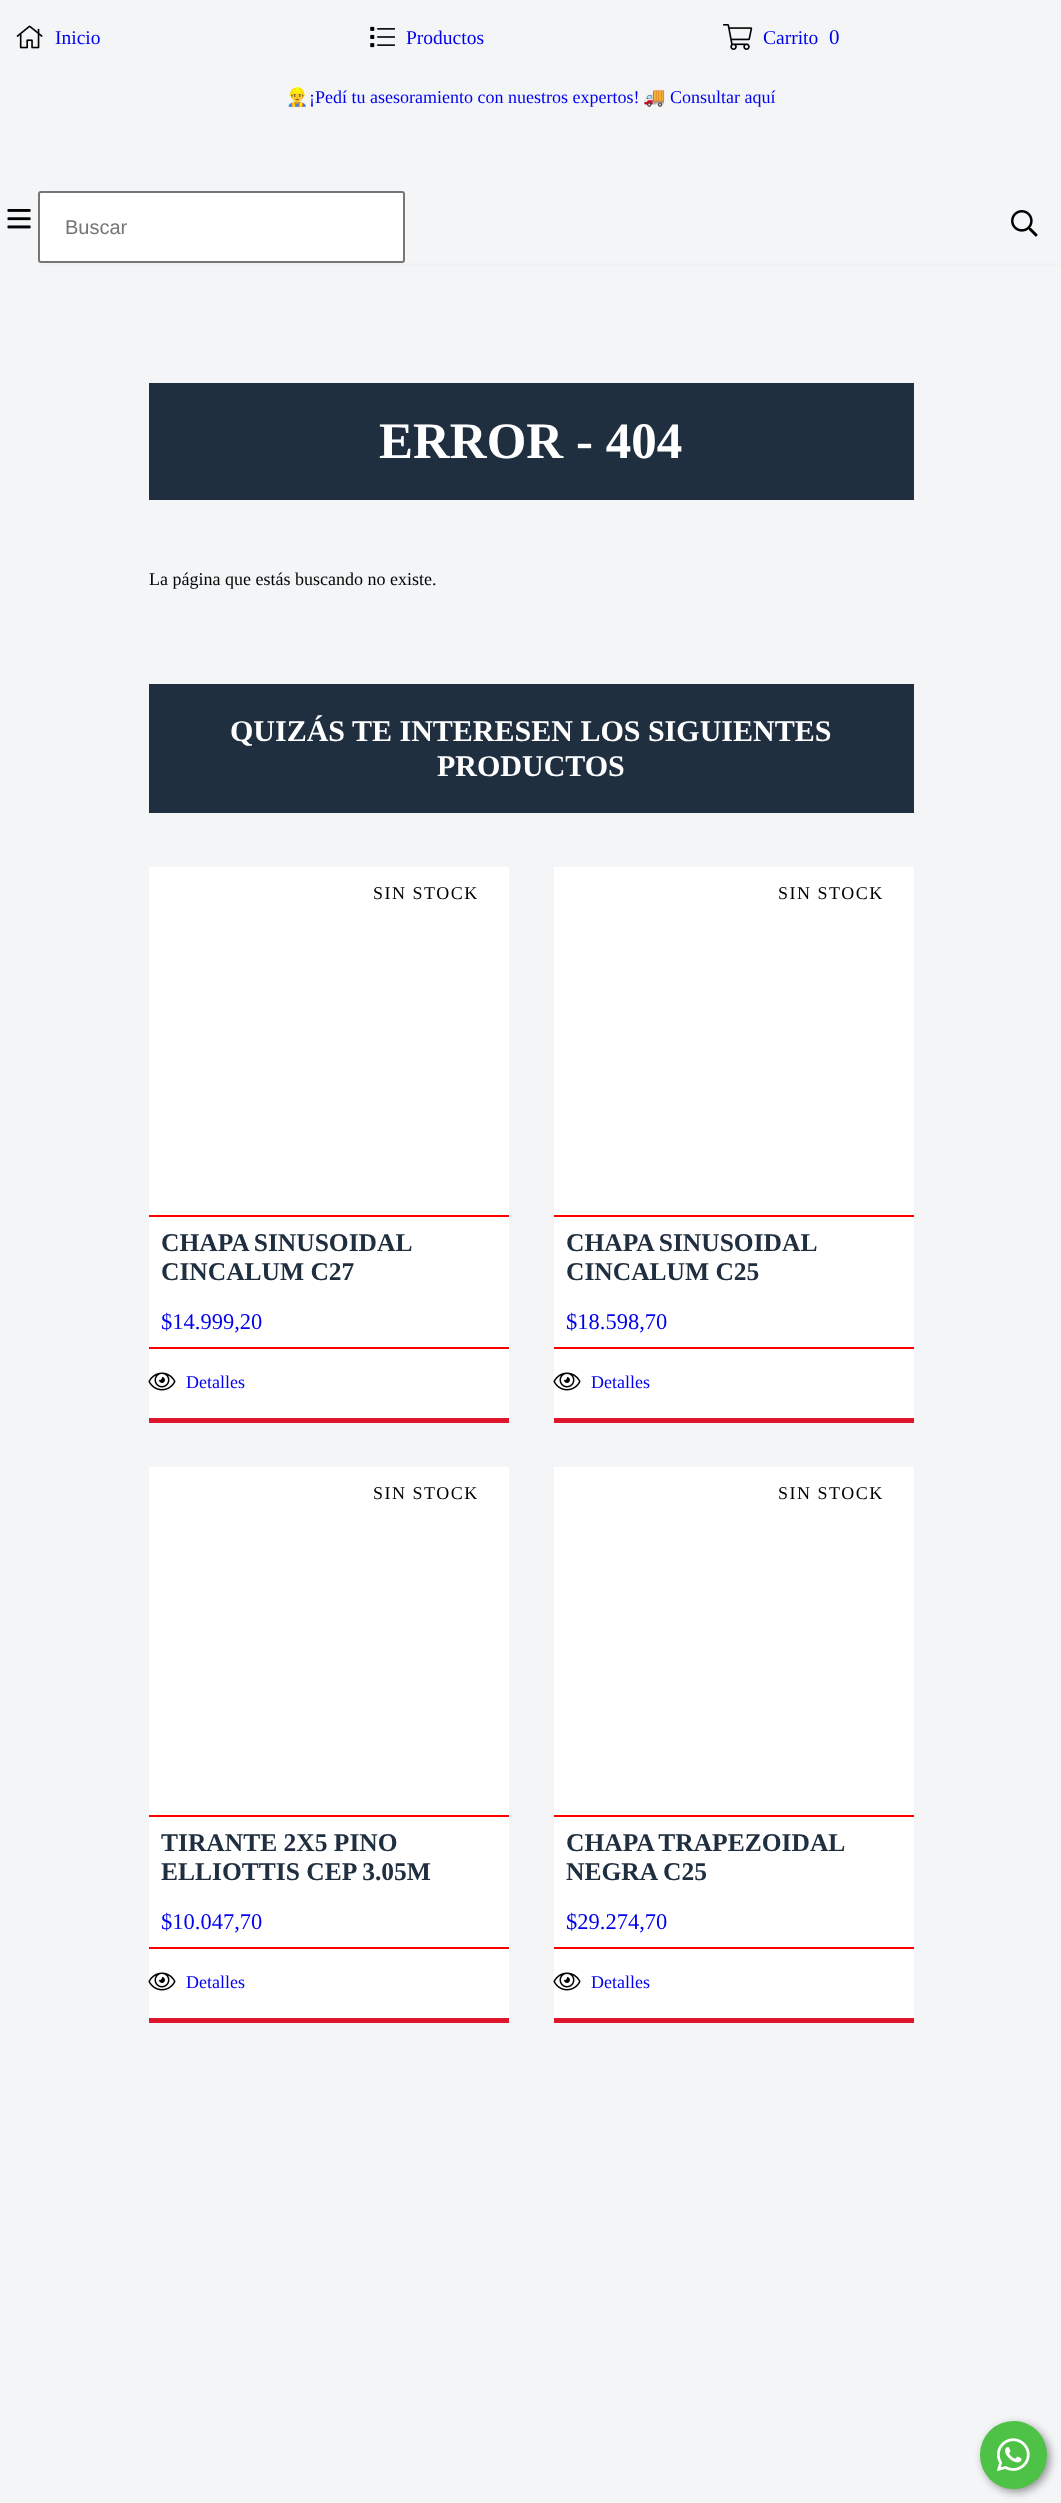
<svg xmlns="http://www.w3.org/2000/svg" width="1061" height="2503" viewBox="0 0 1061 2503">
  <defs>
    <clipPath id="clip1"><path d="M161 1829h336v57H161z"/></clipPath>
  </defs>
  <rect width="100%" height="100%" fill="#f3f5f7"/>
  <image x="16" y="25" width="27" height="24" href="img/1.png"/>
  <image x="370" y="26" width="25" height="22" href="img/2.png"/>
  <image x="723" y="24" width="30" height="26" href="img/3.png"/>
  <image x="7" y="209" width="24" height="20" href="img/4.png"/>
  <rect x="39" y="192" width="365" height="70" rx="2" fill="#fff" stroke="#767676" stroke-width="2"/>
  <image x="1011" y="210" width="27" height="27" href="img/5.png"/>
  <path d="M38 263h1023v3H38z" fill="#f2f2f2"/>
  <path d="M149 383h765v117H149z" fill="#202f40"/>
  <path d="M149 684h765v129H149z" fill="#202f40"/>
  <path d="M149 867h360v551H149z" fill="#fff"/>
  <path d="M149 1418h360v5H149z" fill="#df152d"/>
  <path d="M149 1215h360v2H149z" fill="#f00"/>
  <path d="M149 1347h360v2H149z" fill="#f00"/>
  <image x="148" y="1372" width="28" height="19" href="img/6.png"/>
  <path d="M554 867h360v551H554z" fill="#fff"/>
  <path d="M554 1418h360v5H554z" fill="#df152d"/>
  <path d="M554 1215h360v2H554z" fill="#f00"/>
  <path d="M554 1347h360v2H554z" fill="#f00"/>
  <image x="553" y="1372" width="28" height="19" href="img/6.png"/>
  <path d="M149 1467h360v551H149z" fill="#fff"/>
  <path d="M149 2018h360v5H149z" fill="#df152d"/>
  <path d="M149 1815h360v2H149z" fill="#f00"/>
  <path d="M149 1947h360v2H149z" fill="#f00"/>
  <image x="148" y="1972" width="28" height="19" href="img/6.png"/>
  <path d="M554 1467h360v551H554z" fill="#fff"/>
  <path d="M554 2018h360v5H554z" fill="#df152d"/>
  <path d="M554 1815h360v2H554z" fill="#f00"/>
  <path d="M554 1947h360v2H554z" fill="#f00"/>
  <image x="553" y="1972" width="28" height="19" href="img/6.png"/>
  <rect x="983" y="2424" width="67" height="68" rx="33.5" fill="#00000066" filter="blur(4.5px)"/>
  <rect x="980" y="2421" width="67" height="68" rx="33.5" fill="#4dc247"/>
  <image x="996" y="2438" width="34" height="34" href="img/7.png"/>
  <g font-family="Liberation Serif" font-size="19.5" fill="#00e">
    <text x="55" y="44">Inicio</text>
    <text x="406" y="44">Productos</text>
    <text x="763" y="44">Carrito</text>
  </g>
  <text x="829" y="44" font-family="Liberation Serif" font-size="21" fill="#00e">0</text>
  <text x="286" y="103" font-family="Noto Color Emoji" font-size="18" fill="#00e">👷‍♂️</text>
  <text x="309" y="103" font-family="Liberation Serif" font-size="18" fill="#00e">¡Pedí tu asesoramiento con nuestros expertos!</text>
  <text x="643" y="103" font-family="Noto Color Emoji" font-size="18" fill="#00e">🚚</text>
  <text x="670" y="103" font-family="Liberation Serif" font-size="18" fill="#00e">Consultar aquí</text>
  <text x="65" y="234" font-family="Liberation Sans" font-size="20" fill="#757575">Buscar</text>
  <text x="379" y="458" font-family="Liberation Serif" font-size="51" font-weight="bold" fill="#fff">ERROR - 404</text>
  <text x="149" y="585" font-family="Liberation Serif" font-size="18" fill="#000">La página que estás buscando no existe.</text>
  <g font-family="Liberation Serif" font-size="30" font-weight="bold" fill="#fff">
    <text x="230" y="741">QUIZÁS TE INTERESEN LOS SIGUIENTES</text>
    <text x="437" y="776">PRODUCTOS</text>
  </g>
  <text x="373" y="899" font-family="Liberation Serif" font-size="18" letter-spacing="1.5" fill="#000">SIN STOCK</text>
  <g font-family="Liberation Serif" font-size="25.5" font-weight="bold" fill="#202f40">
    <text x="161" y="1251" word-spacing="-1">CHAPA SINUSOIDAL</text>
    <text x="161" y="1280">CINCALUM C27</text>
  </g>
  <text x="161" y="1329" font-family="Liberation Serif" font-size="22.5" fill="#00e">$14.999,20</text>
  <text x="186" y="1388" font-family="Liberation Serif" font-size="18" fill="#00e">Detalles</text>
  <text x="778" y="899" font-family="Liberation Serif" font-size="18" letter-spacing="1.5" fill="#000">SIN STOCK</text>
  <g font-family="Liberation Serif" font-size="25.5" font-weight="bold" fill="#202f40">
    <text x="566" y="1251" word-spacing="-1">CHAPA SINUSOIDAL</text>
    <text x="566" y="1280">CINCALUM C25</text>
  </g>
  <text x="566" y="1329" font-family="Liberation Serif" font-size="22.5" fill="#00e">$18.598,70</text>
  <text x="591" y="1388" font-family="Liberation Serif" font-size="18" fill="#00e">Detalles</text>
  <text x="373" y="1499" font-family="Liberation Serif" font-size="18" letter-spacing="1.5" fill="#000">SIN STOCK</text>
  <g clip-path="url(#clip1)">
    <text x="161" y="1851" font-family="Liberation Serif" font-size="25.5" font-weight="bold" fill="#202f40">TIRANTE 2X5 PINO</text>
  </g>
  <text x="161" y="1880" font-family="Liberation Serif" font-size="25.5" font-weight="bold" fill="#202f40">ELLIOTTIS CEP 3.05M</text>
  <text x="161" y="1929" font-family="Liberation Serif" font-size="22.5" fill="#00e">$10.047,70</text>
  <text x="186" y="1988" font-family="Liberation Serif" font-size="18" fill="#00e">Detalles</text>
  <text x="778" y="1499" font-family="Liberation Serif" font-size="18" letter-spacing="1.5" fill="#000">SIN STOCK</text>
  <g font-family="Liberation Serif" font-size="25.5" font-weight="bold" fill="#202f40">
    <text x="566" y="1851" word-spacing="-1">CHAPA TRAPEZOIDAL</text>
    <text x="566" y="1880">NEGRA C25</text>
  </g>
  <text x="566" y="1929" font-family="Liberation Serif" font-size="22.5" fill="#00e">$29.274,70</text>
  <text x="591" y="1988" font-family="Liberation Serif" font-size="18" fill="#00e">Detalles</text>
</svg>
